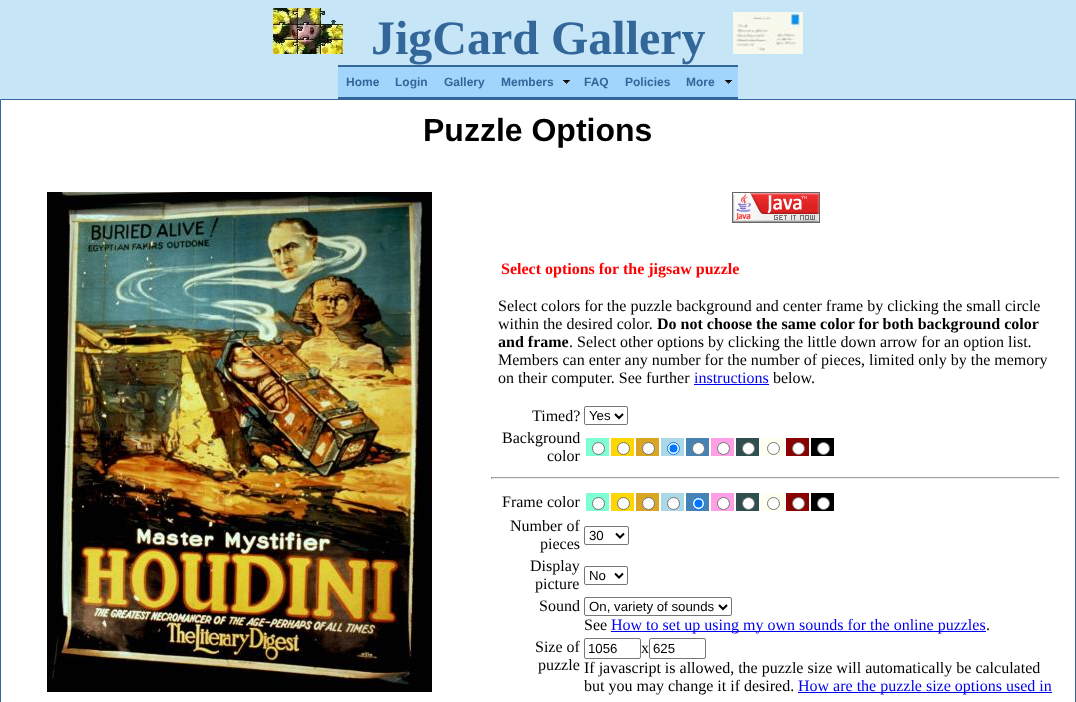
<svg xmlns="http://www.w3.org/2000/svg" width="1076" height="702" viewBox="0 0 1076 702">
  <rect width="100%" height="100%" fill="#c6e5f7"/>
  <image x="273" y="8" width="70" height="46" href="img/1.png"/>
  <image x="733" y="12" width="70" height="42" href="img/2.png"/>
  <path d="M338 67h400v30H338z" fill="#a2d5fb"/>
  <path d="M338 65h400v2H338z" fill="#369"/>
  <path d="M338 97h400v2H338z" fill="#369"/>
  <image x="563" y="80" width="7" height="4" href="img/3.png"/>
  <image x="725" y="80" width="7" height="4" href="img/3.png"/>
  <path d="M0.5 99.5h1075v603H0.5z" fill="#fff" stroke="#369"/>
  <image x="47" y="192" width="385" height="500" href="img/4.png"/>
  <image x="732" y="192" width="88" height="31" href="img/5.png"/>
  <path d="M694 384h75v1H694z" fill="#00e"/>
  <rect x="584.5" y="406.5" width="43" height="18" rx="1.5" fill="none" stroke="#767676"/>
  <path d="M615 414L619 418L623 414" fill="none" stroke="#000" stroke-width="2"/>
  <path d="M586 438h23v18H586z" fill="#7fffd4"/>
  <circle cx="598.5" cy="448.5" r="6" fill="#fff" stroke="#767676"/>
  <path d="M611 438h23v18H611z" fill="#ffd700"/>
  <circle cx="623.5" cy="448.5" r="6" fill="#fff" stroke="#767676"/>
  <path d="M636 438h23v18H636z" fill="#daa520"/>
  <circle cx="648.5" cy="448.5" r="6" fill="#fff" stroke="#767676"/>
  <path d="M661 438h23v18H661z" fill="#aad8e6"/>
  <circle cx="673.5" cy="448.5" r="6" fill="#fff" stroke="#0075ff"/>
  <circle cx="673.5" cy="448.5" r="4" fill="#0075ff"/>
  <path d="M686 438h23v18H686z" fill="#4682b4"/>
  <circle cx="698.5" cy="448.5" r="6" fill="#fff" stroke="#767676"/>
  <path d="M711 438h23v18H711z" fill="#ffa0e6"/>
  <circle cx="723.5" cy="448.5" r="6" fill="#fff" stroke="#767676"/>
  <path d="M736 438h23v18H736z" fill="#2f4f4f"/>
  <circle cx="748.5" cy="448.5" r="6" fill="#fff" stroke="#767676"/>
  <path d="M761 438h23v18H761z" fill="#fffff0"/>
  <circle cx="773.5" cy="448.5" r="6" fill="#fff" stroke="#767676"/>
  <path d="M786 438h23v18H786z" fill="#8b0000"/>
  <circle cx="798.5" cy="448.5" r="6" fill="#fff" stroke="#767676"/>
  <path d="M811 438h23v18H811z" fill="#000"/>
  <circle cx="823.5" cy="448.5" r="6" fill="#fff" stroke="#767676"/>
  <path d="M491 477h569v1H491z" fill="#9f9f9f"/>
  <path d="M1059 477h1v2H1059z" fill="#eee"/>
  <path d="M491 478h569v1H491z" fill="#eee"/>
  <path d="M491 477h1v2H491z" fill="#9f9f9f"/>
  <path d="M586 493h23v18H586z" fill="#7fffd4"/>
  <circle cx="598.5" cy="503.5" r="6" fill="#fff" stroke="#767676"/>
  <path d="M611 493h23v18H611z" fill="#ffd700"/>
  <circle cx="623.5" cy="503.5" r="6" fill="#fff" stroke="#767676"/>
  <path d="M636 493h23v18H636z" fill="#daa520"/>
  <circle cx="648.5" cy="503.5" r="6" fill="#fff" stroke="#767676"/>
  <path d="M661 493h23v18H661z" fill="#aad8e6"/>
  <circle cx="673.5" cy="503.5" r="6" fill="#fff" stroke="#767676"/>
  <path d="M686 493h23v18H686z" fill="#4682b4"/>
  <circle cx="698.5" cy="503.5" r="6" fill="#fff" stroke="#0075ff"/>
  <circle cx="698.5" cy="503.5" r="4" fill="#0075ff"/>
  <path d="M711 493h23v18H711z" fill="#ffa0e6"/>
  <circle cx="723.5" cy="503.5" r="6" fill="#fff" stroke="#767676"/>
  <path d="M736 493h23v18H736z" fill="#2f4f4f"/>
  <circle cx="748.5" cy="503.5" r="6" fill="#fff" stroke="#767676"/>
  <path d="M761 493h23v18H761z" fill="#fffff0"/>
  <circle cx="773.5" cy="503.5" r="6" fill="#fff" stroke="#767676"/>
  <path d="M786 493h23v18H786z" fill="#8b0000"/>
  <circle cx="798.5" cy="503.5" r="6" fill="#fff" stroke="#767676"/>
  <path d="M811 493h23v18H811z" fill="#000"/>
  <circle cx="823.5" cy="503.5" r="6" fill="#fff" stroke="#767676"/>
  <rect x="584.5" y="526.5" width="44" height="18" rx="1.5" fill="none" stroke="#767676"/>
  <path d="M616 533.5L620 537.5L624 533.5" fill="none" stroke="#000" stroke-width="2"/>
  <rect x="584.5" y="566.5" width="43" height="18" rx="1.5" fill="none" stroke="#767676"/>
  <path d="M615 573.5L619 577.5L623 573.5" fill="none" stroke="#000" stroke-width="2"/>
  <rect x="584.5" y="597.5" width="147" height="18" rx="1.5" fill="none" stroke="#767676"/>
  <path d="M719 605L723 609L727 605" fill="none" stroke="#000" stroke-width="2"/>
  <path d="M611 631h375v1H611z" fill="#00e"/>
  <rect x="584.5" y="638.5" width="56" height="20" rx="1.5" fill="none" stroke="#767676"/>
  <rect x="649.5" y="638.5" width="56" height="20" rx="1.5" fill="none" stroke="#767676"/>
  <path d="M798 692h254v1H798z" fill="#00e"/>
  <text x="371" y="54" font-family="Liberation Serif" font-size="48" font-weight="bold" fill="#369">JigCard Gallery</text>
  <g font-family="Liberation Sans" font-size="12" font-weight="bold" fill="#369">
    <text x="346" y="86">Home</text>
    <text x="395" y="86">Login</text>
    <text x="444" y="86">Gallery</text>
    <text x="501" y="86">Members</text>
    <text x="584" y="86">FAQ</text>
    <text x="625" y="86">Policies</text>
    <text x="686" y="86">More</text>
  </g>
  <text x="423" y="141" font-family="Liberation Sans" font-size="32" font-weight="bold" fill="#000">Puzzle Options</text>
  <text x="501" y="274" font-family="Liberation Serif" font-size="16" font-weight="bold" fill="#f00">Select options for the jigsaw puzzle</text>
  <g font-family="Liberation Serif" font-size="16" fill="#000">
    <text x="498" y="311">Select colors for the puzzle background and center frame by clicking the small circle</text>
    <text x="498" y="329">within the desired color.</text>
  </g>
  <g font-family="Liberation Serif" font-size="16" font-weight="bold" fill="#000">
    <text x="657" y="329">Do not choose the same color for both background color</text>
    <text x="498" y="347">and frame</text>
  </g>
  <g font-family="Liberation Serif" font-size="16" fill="#000">
    <text x="569" y="347">. Select other options by clicking the little down arrow for an option list.</text>
    <text x="498" y="365">Members can enter any number for the number of pieces, limited only by the memory</text>
    <text x="498" y="383">on their computer. See further</text>
  </g>
  <text x="694" y="383" font-family="Liberation Serif" font-size="16" fill="#00e">instructions</text>
  <g font-family="Liberation Serif" font-size="16" fill="#000">
    <text x="773" y="383">below.</text>
    <text x="532" y="421">Timed?</text>
  </g>
  <text x="589" y="420" font-family="Liberation Sans" font-size="13.25" fill="#000">Yes</text>
  <g font-family="Liberation Serif" font-size="16" fill="#000">
    <text x="502" y="443">Background</text>
    <text x="547" y="461">color</text>
    <text x="502" y="507">Frame color</text>
    <text x="510" y="531">Number of</text>
    <text x="540" y="549">pieces</text>
  </g>
  <text x="589" y="540" font-family="Liberation Sans" font-size="13.25" fill="#000">30</text>
  <g font-family="Liberation Serif" font-size="16" fill="#000">
    <text x="530" y="571">Display</text>
    <text x="535" y="589">picture</text>
  </g>
  <text x="589" y="580" font-family="Liberation Sans" font-size="13.25" fill="#000">No</text>
  <text x="539" y="611" font-family="Liberation Serif" font-size="16" fill="#000">Sound</text>
  <text x="589" y="611" font-family="Liberation Sans" font-size="13.25" fill="#000">On, variety of sounds</text>
  <text x="584" y="630" font-family="Liberation Serif" font-size="16" fill="#000">See</text>
  <text x="611" y="630" font-family="Liberation Serif" font-size="16" fill="#00e">How to set up using my own sounds for the online puzzles</text>
  <g font-family="Liberation Serif" font-size="16" fill="#000">
    <text x="986" y="630">.</text>
    <text x="535" y="652">Size of</text>
    <text x="538" y="670">puzzle</text>
  </g>
  <text x="588" y="653" font-family="Liberation Sans" font-size="13.25" fill="#000">1056</text>
  <text x="641" y="653" font-family="Liberation Serif" font-size="16" fill="#000">x</text>
  <text x="653" y="653" font-family="Liberation Sans" font-size="13.25" fill="#000">625</text>
  <g font-family="Liberation Serif" font-size="16" fill="#000">
    <text x="584" y="673">If javascript is allowed, the puzzle size will automatically be calculated</text>
    <text x="584" y="691">but you may change it if desired.</text>
  </g>
  <text x="798" y="691" font-family="Liberation Serif" font-size="16" fill="#00e">How are the puzzle size options used in</text>
</svg>
